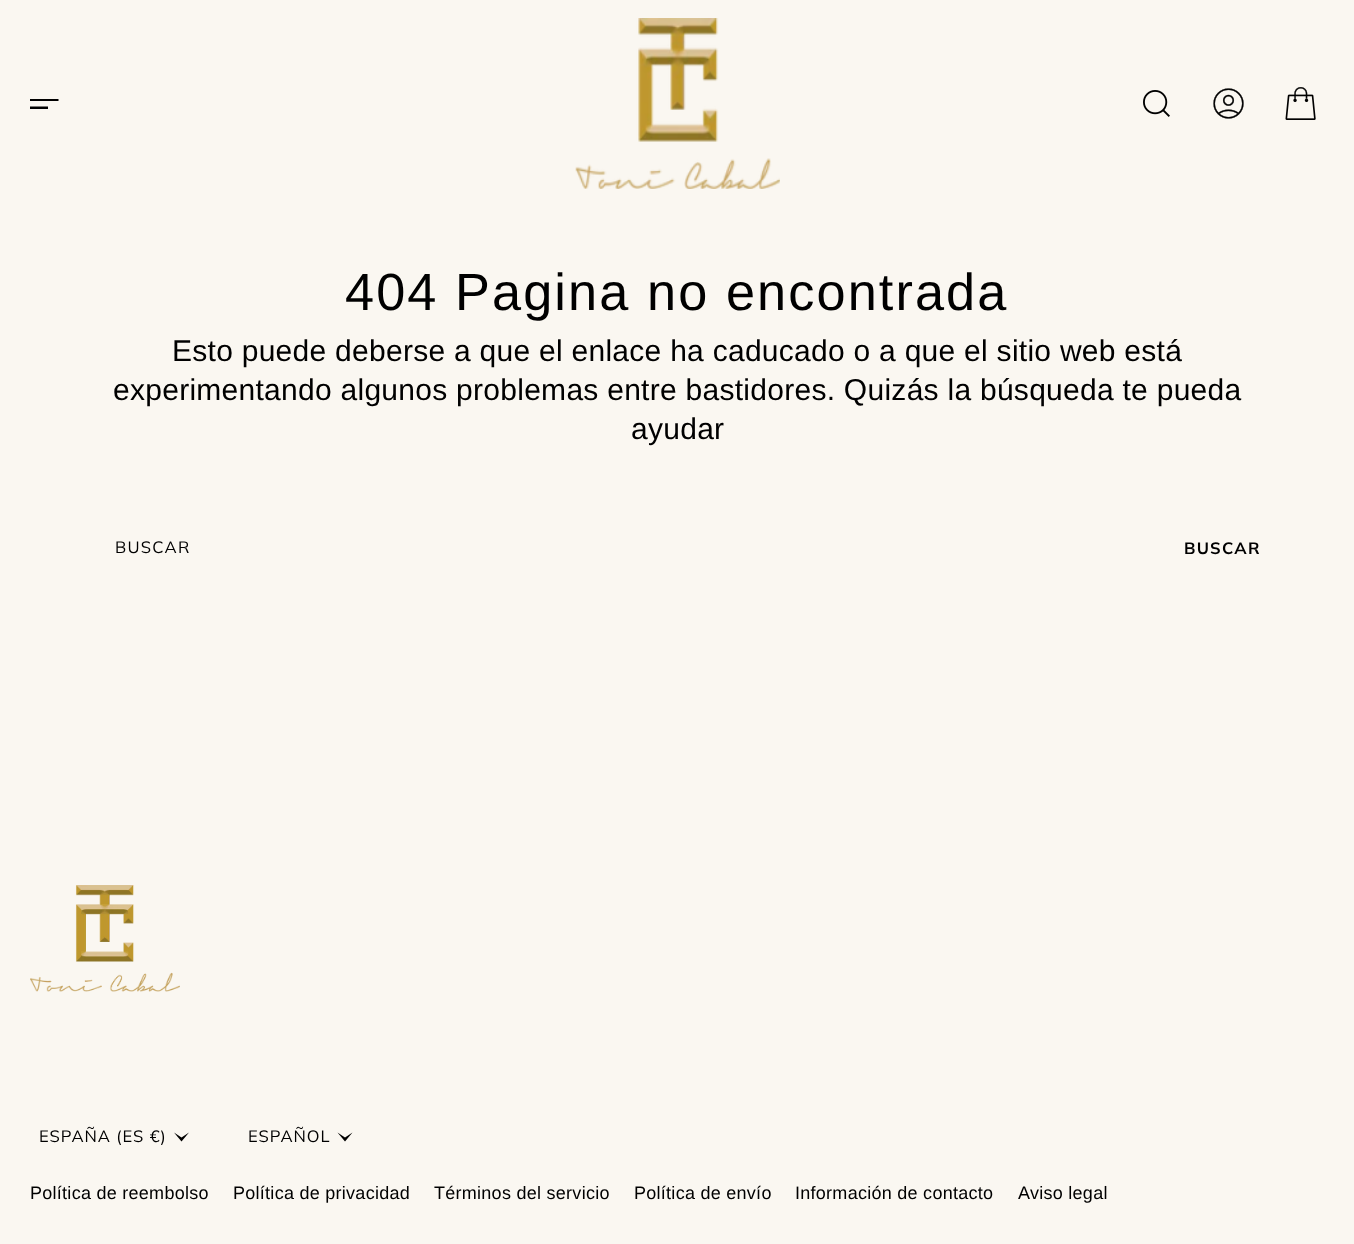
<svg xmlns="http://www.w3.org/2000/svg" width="1354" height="1244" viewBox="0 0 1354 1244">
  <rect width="100%" height="100%" fill="#faf7f1"/>
  <path d="M58.5 99H30V101H58.5ZM48 106.5H30V109H48Z" fill="#000" fill-rule="evenodd"/>
  <image x="575" y="18" width="205" height="171" href="img/1.png"/>
  <image x="1143" y="90" width="27" height="27" href="img/2.png"/>
  <image x="1213" y="88" width="31" height="31" href="img/3.png"/>
  <image x="1285" y="87" width="31" height="33" href="img/4.png"/>
  <image x="30" y="885" width="150" height="107" href="img/5.png"/>
  <path d="M181.5 1141.5L174 1132.5L181.5 1137.5L189 1132.5Z" fill="#000"/>
  <path d="M345 1141.5L337.5 1132.5L345 1137.5L352.5 1132.5Z" fill="#000"/>
  <text x="345" y="310" font-family="Liberation Sans" font-size="52.25" letter-spacing="2.1" fill="#000">404 Pagina no encontrada</text>
  <g font-family="Liberation Sans" font-size="30" letter-spacing="0.27" fill="#000">
    <text x="172" y="361">Esto puede deberse a que el enlace ha caducado o a que el sitio web está</text>
    <text x="113" y="400">experimentando algunos problemas entre bastidores. Quizás la búsqueda te pueda</text>
    <text x="631" y="439">ayudar</text>
  </g>
  <text x="115" y="553" font-family="Muli" font-size="16.5" letter-spacing="1.25" fill="#000">BUSCAR</text>
  <text x="1184" y="554" font-family="Muli" font-size="16.5" font-weight="bold" letter-spacing="1.25" fill="#000">BUSCAR</text>
  <g font-family="Muli" font-size="16.5" letter-spacing="1" fill="#000">
    <text x="39" y="1142">ESPAÑA (ES €)</text>
    <text x="248" y="1142">ESPAÑOL</text>
  </g>
  <g font-family="Liberation Sans" font-size="18" letter-spacing="0.27" fill="#000">
    <text x="30" y="1199">Política de reembolso</text>
    <text x="233" y="1199">Política de privacidad</text>
    <text x="434" y="1199">Términos del servicio</text>
    <text x="634" y="1199">Política de envío</text>
    <text x="795" y="1199">Información de contacto</text>
    <text x="1018" y="1199">Aviso legal</text>
  </g>
</svg>
